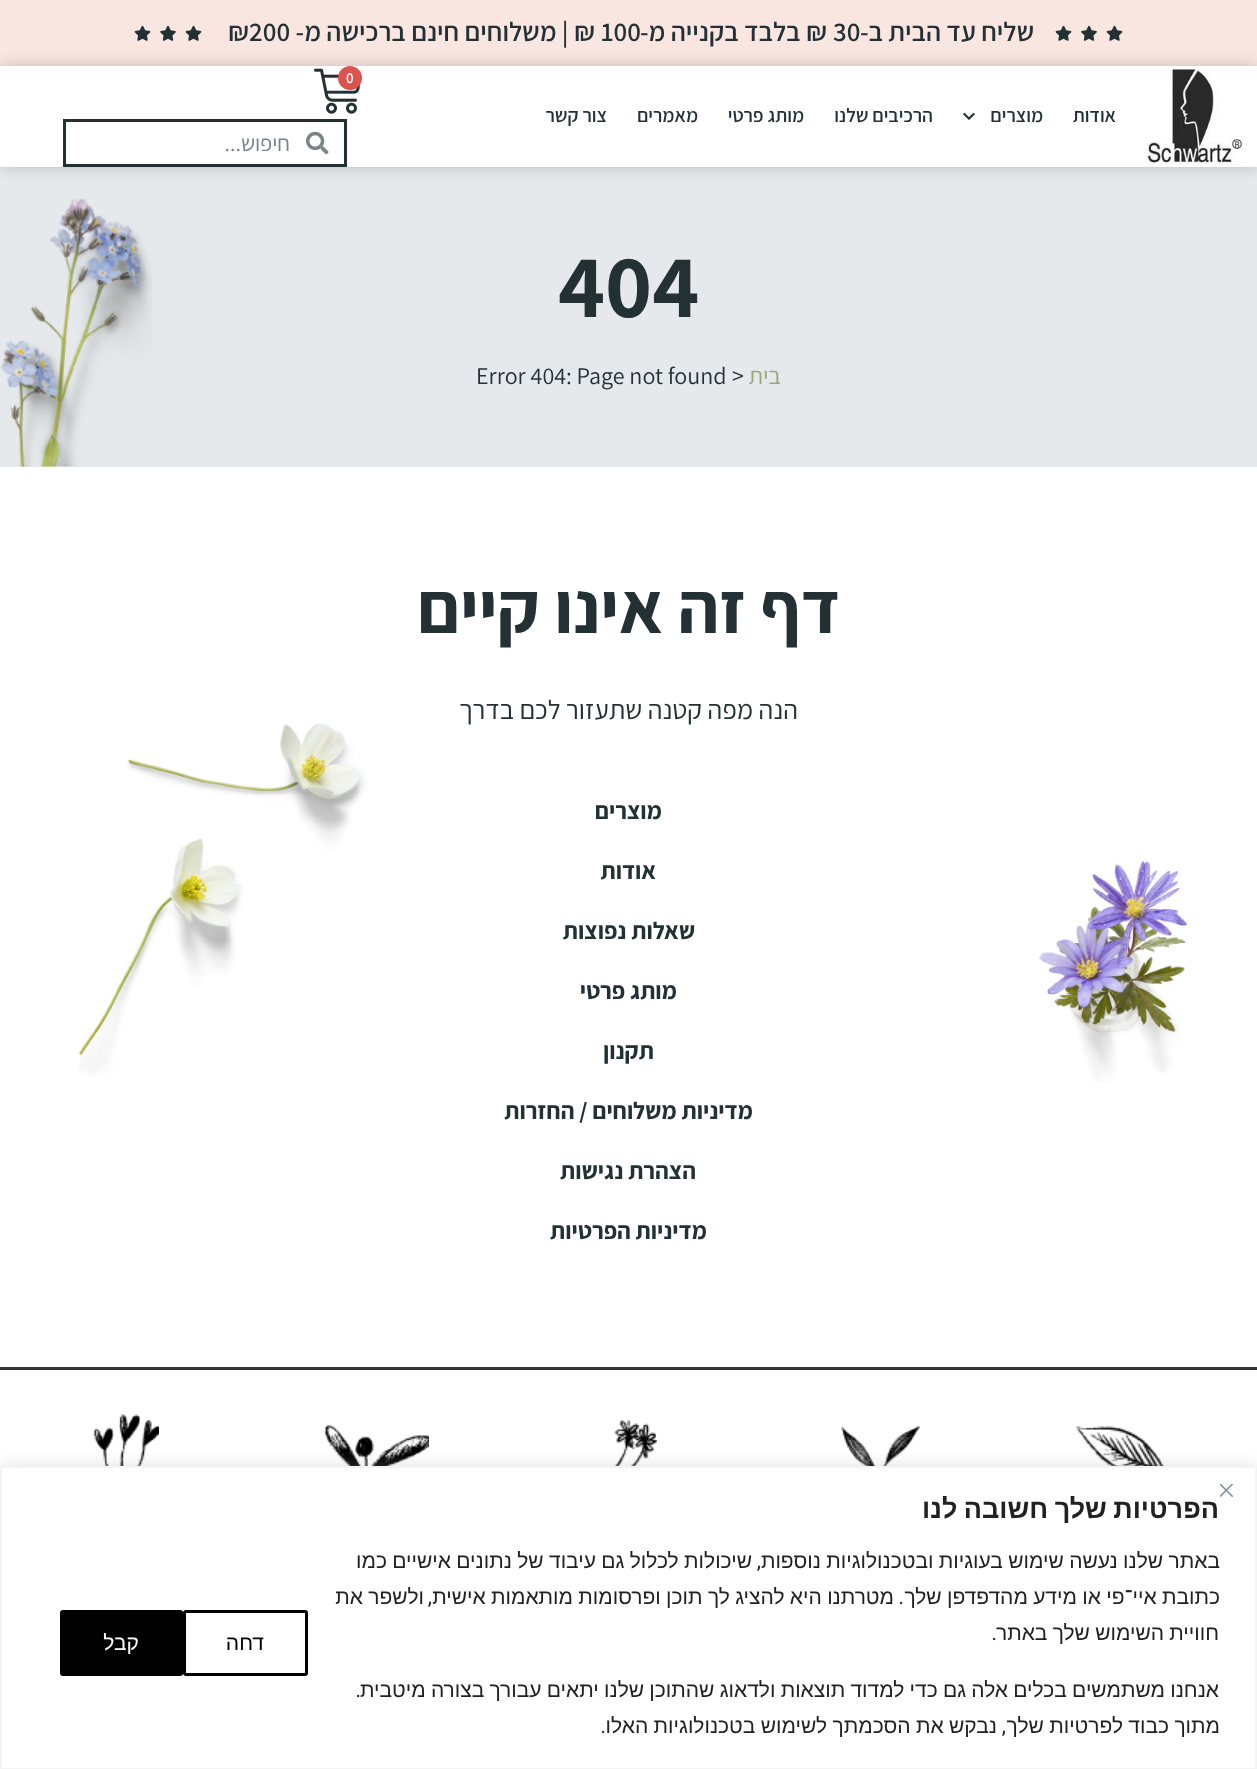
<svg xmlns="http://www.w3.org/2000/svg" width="1257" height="1769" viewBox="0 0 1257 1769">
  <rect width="100%" height="100%" fill="#fff"/>
  <path d="M0 0h1257v66H0z" fill="#f9e6e1"/>
  <image x="1106" y="25" width="17" height="16" href="img/1.png"/>
  <image x="1081" y="25" width="16" height="16" href="img/2.png"/>
  <image x="1055" y="25" width="17" height="16" href="img/1.png"/>
  <image x="185" y="25" width="17" height="16" href="img/1.png"/>
  <image x="160" y="25" width="16" height="16" href="img/2.png"/>
  <image x="134" y="25" width="17" height="16" href="img/1.png"/>
  <path d="M0 167h1257v300H0z" fill="#e6e9eb"/>
  <path d="M0 66h1257v101H0z" fill="#00000033" filter="blur(7.5px)"/>
  <path d="M0 66h1257v101H0z" fill="#fff"/>
  <image x="1144" y="69" width="100" height="96" href="img/3.png"/>
  <image x="963" y="112" width="12" height="8" href="img/4.png"/>
  <image x="314" y="68" width="47" height="46" href="img/5.png"/>
  <circle cx="350" cy="78" r="12" fill="#d9534f"/>
  <path d="M64.5 120.5h281v45H64.5z" fill="none" stroke="#233135" stroke-width="3"/>
  <image x="306" y="131" width="23" height="24" href="img/6.png"/>
  <image x="1" y="198" width="151" height="269" href="img/7.png"/>
  <image x="79" y="723" width="1108" height="359" href="img/8.png"/>
  <path d="M0 1367h1257v3H0z" fill="#333"/>
  <image x="1075" y="1426" width="90" height="40" href="img/9.png"/>
  <image x="841" y="1426" width="79" height="40" href="img/10.png"/>
  <image x="614" y="1420" width="43" height="46" href="img/11.png"/>
  <image x="324" y="1424" width="105" height="42" href="img/12.png"/>
  <image x="93" y="1414" width="66" height="52" href="img/13.png"/>
  <path d="M0 1464h1257v305H0z" fill="#acabab4d" filter="blur(7.5px)"/>
  <path d="M1 1467h1255v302H1z" fill="#fff" stroke="#f4f4f4" stroke-width="2"/>
  <image x="1220" y="1484" width="13" height="13" href="img/14.png"/>
  <rect x="184.5" y="1611.5" width="122" height="63" rx="1.5" fill="none" stroke="#000" stroke-width="3"/>
  <rect x="61.5" y="1611.5" width="120" height="63" rx="1.5" fill="#000" stroke="#000" stroke-width="3"/>
  <text x="1034" y="41" font-family="Assistant" font-size="27" font-weight="600" direction="rtl" fill="#233135">שליח עד הבית ב-</text>
  <text x="833" y="41" font-family="Assistant" font-size="27" font-weight="600" fill="#233135">30</text>
  <text x="827" y="41" font-family="Assistant" font-size="27" font-weight="600" direction="rtl" fill="#233135">₪ בלבד בקנייה מ-</text>
  <text x="601" y="41" font-family="Assistant" font-size="27" font-weight="600" fill="#233135">100</text>
  <text x="595" y="41" font-family="Assistant" font-size="27" font-weight="600" direction="rtl" fill="#233135">₪ | משלוחים חינם ברכישה מ-</text>
  <text x="228" y="41" font-family="Assistant" font-size="27" font-weight="600" fill="#233135">₪200</text>
  <g font-family="Assistant" font-size="19.5" font-weight="600" direction="rtl" fill="#233135">
    <text x="1116" y="122">אודות</text>
    <text x="1043" y="122">מוצרים</text>
    <text x="933" y="122">הרכיבים שלנו</text>
    <text x="804" y="122">מותג פרטי</text>
    <text x="698" y="122">מאמרים</text>
    <text x="607" y="122">צור קשר</text>
  </g>
  <text x="346" y="83" font-family="Assistant" font-size="15" font-weight="600" fill="#fff">0</text>
  <text x="290" y="151" font-family="Assistant" font-size="22.5" direction="rtl" fill="#7b8386">חיפוש...</text>
  <text x="558" y="317" font-family="Assistant" font-size="90" font-weight="bold" fill="#233135">404</text>
  <text x="781" y="384" font-family="Assistant" font-size="24" direction="rtl" fill="#98a979">בית</text>
  <g font-family="Assistant" font-size="24" fill="#233135">
    <text x="732" y="384">&gt;</text>
    <text x="476" y="384">Error 404: Page not found</text>
  </g>
  <text x="840" y="633" font-family="Assistant" font-size="72" font-weight="bold" direction="rtl" fill="#233135">דף זה אינו קיים</text>
  <text x="798" y="719" font-family="Assistant" font-size="27" direction="rtl" fill="#233135">הנה מפה קטנה שתעזור לכם בדרך</text>
  <g font-family="Assistant" font-size="24" font-weight="bold" direction="rtl" fill="#233135">
    <text x="662" y="819">מוצרים</text>
    <text x="656" y="879">אודות</text>
    <text x="695" y="939">שאלות נפוצות</text>
    <text x="677" y="999">מותג פרטי</text>
    <text x="654" y="1059">תקנון</text>
    <text x="753" y="1119">מדיניות משלוחים / החזרות</text>
    <text x="696" y="1179">הצהרת נגישות</text>
    <text x="707" y="1239">מדיניות הפרטיות</text>
  </g>
  <text x="1219" y="1518" word-spacing="-1" font-family="Liberation Sans" font-size="27" font-weight="bold" direction="rtl" fill="#212121">הפרטיות שלך חשובה לנו</text>
  <text x="1220" y="1568" word-spacing="-0.5" font-family="Liberation Sans" font-size="21" direction="rtl" fill="#212121">באתר שלנו נעשה שימוש בעוגיות ובטכנולוגיות נוספות</text>
  <text x="761" y="1568" font-family="Roboto" font-size="21" direction="rtl" fill="#212121">,</text>
  <g font-family="Liberation Sans" font-size="21" direction="rtl" fill="#212121">
    <text x="752" y="1568" word-spacing="-0.5">שיכולות לכלול גם עיבוד של נתונים אישיים כמו</text>
    <text x="1220" y="1604" word-spacing="-0.5">כתובת איי־פי או מידע מהדפדפן שלך</text>
  </g>
  <text x="904" y="1604" font-family="Roboto" font-size="21" direction="rtl" fill="#212121">.</text>
  <text x="894" y="1604" word-spacing="-0.5" font-family="Liberation Sans" font-size="21" direction="rtl" fill="#212121">מטרתנו היא להציג לך תוכן ופרסומות מותאמות אישית</text>
  <text x="432" y="1604" font-family="Roboto" font-size="21" direction="rtl" fill="#212121">,</text>
  <g font-family="Liberation Sans" font-size="21" direction="rtl" fill="#212121">
    <text x="424" y="1604" word-spacing="-0.5">ולשפר את</text>
    <text x="1219" y="1640" word-spacing="-0.6">חוויית השימוש שלך באתר</text>
  </g>
  <text x="997" y="1640" font-family="Roboto" font-size="21" direction="rtl" fill="#212121">.</text>
  <text x="1219" y="1697" word-spacing="-0.6" font-family="Liberation Sans" font-size="21" direction="rtl" fill="#212121">אנחנו משתמשים בכלים אלה גם כדי למדוד תוצאות ולדאוג שהתוכן שלנו יתאים עבורך בצורה מיטבית</text>
  <text x="361" y="1697" font-family="Roboto" font-size="21" direction="rtl" fill="#212121">.</text>
  <text x="1220" y="1733" word-spacing="-0.5" font-family="Liberation Sans" font-size="21" direction="rtl" fill="#212121">מתוך כבוד לפרטיות שלך</text>
  <text x="1006" y="1733" font-family="Roboto" font-size="21" direction="rtl" fill="#212121">,</text>
  <text x="997" y="1733" word-spacing="-0.5" font-family="Liberation Sans" font-size="21" direction="rtl" fill="#212121">נבקש את הסכמתך לשימוש בטכנולוגיות האלו</text>
  <text x="606" y="1733" font-family="Roboto" font-size="21" direction="rtl" fill="#212121">.</text>
  <text x="264" y="1650" font-family="Liberation Sans" font-size="21" direction="rtl" fill="#000">דחה</text>
  <text x="139" y="1650" font-family="Liberation Sans" font-size="21" direction="rtl" fill="#fff">קבל</text>
</svg>
